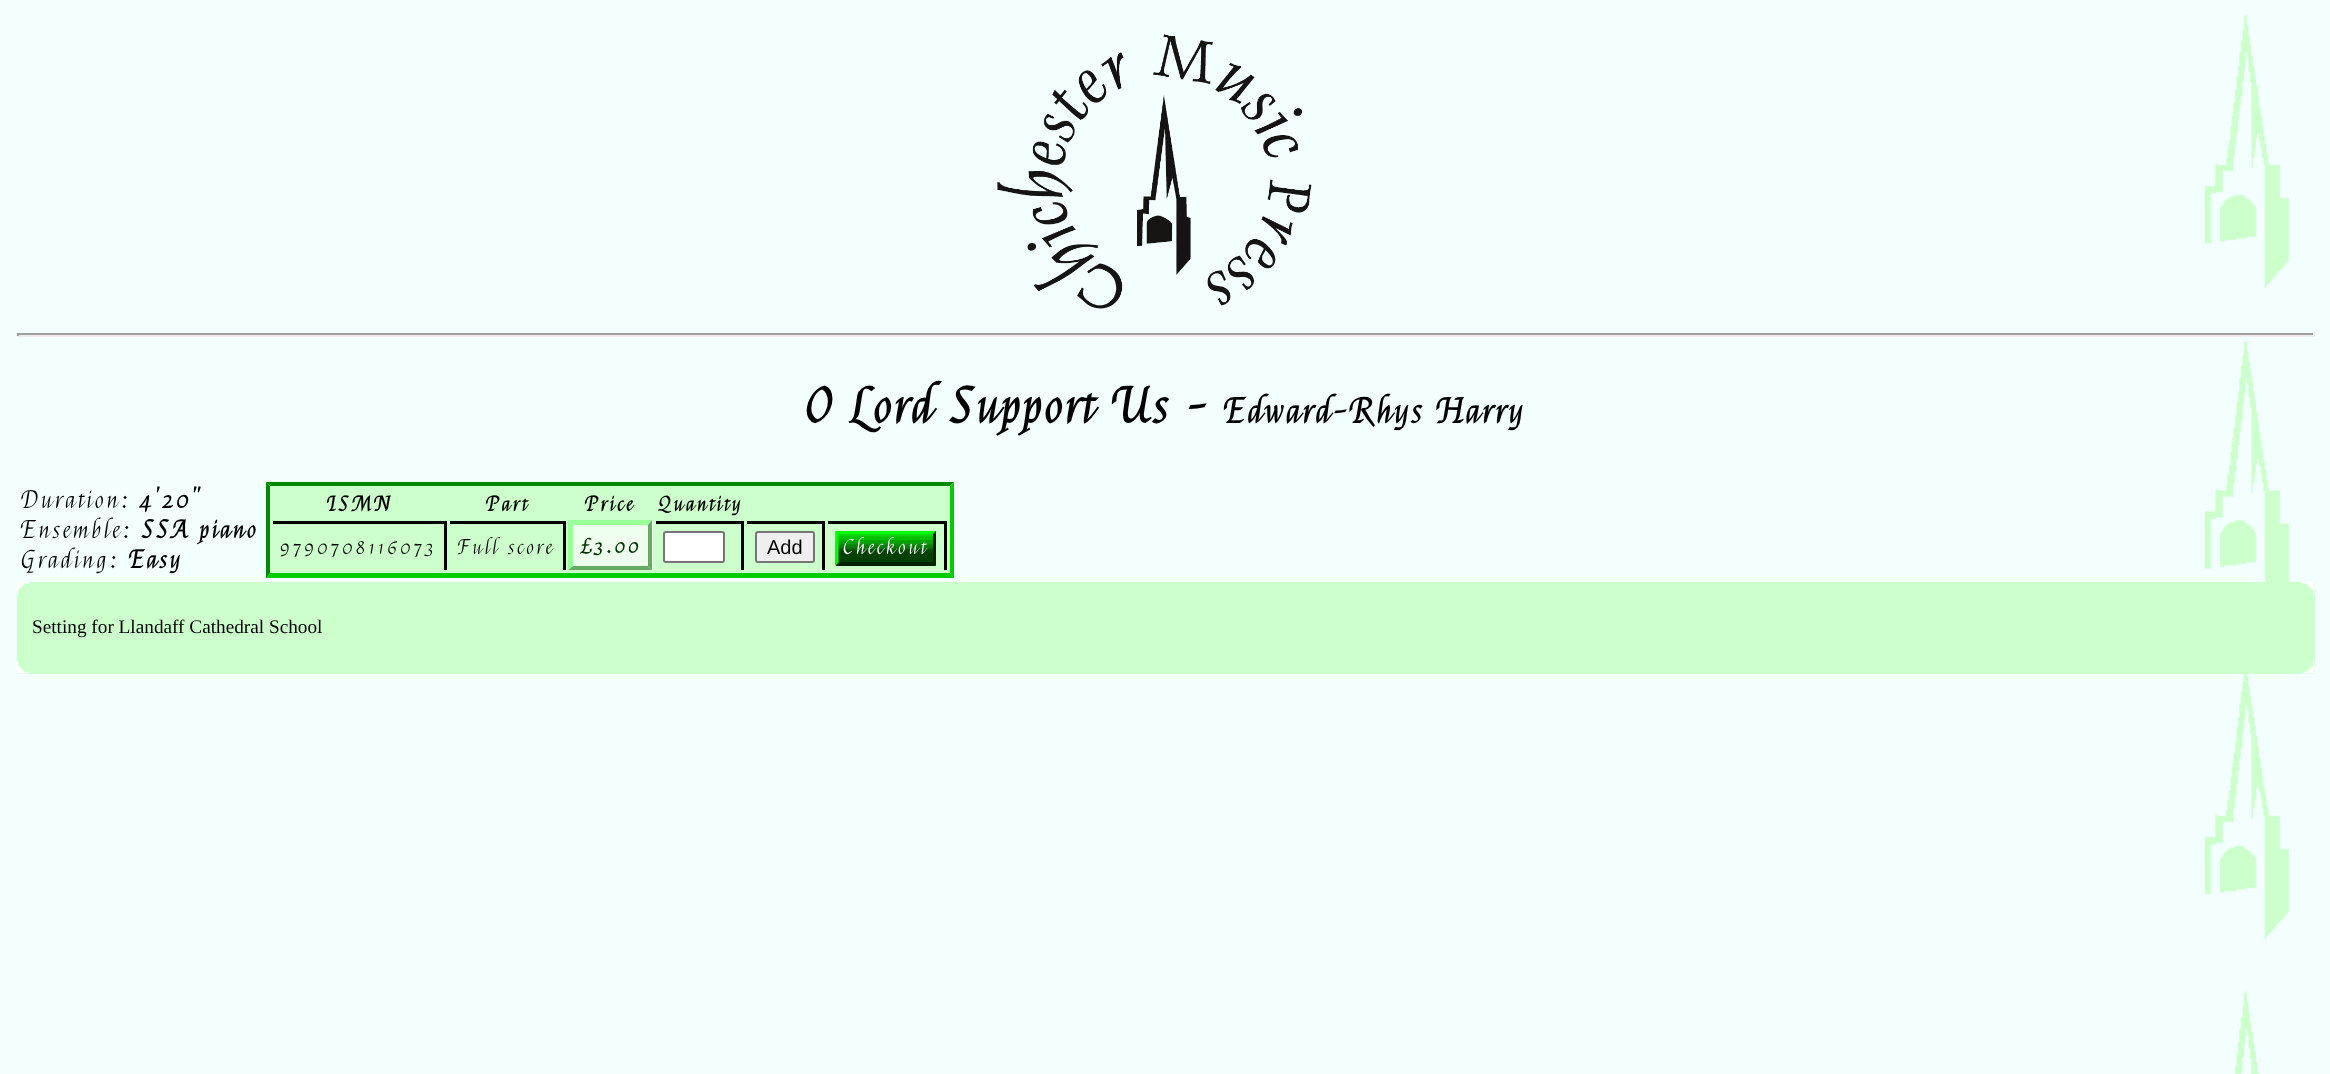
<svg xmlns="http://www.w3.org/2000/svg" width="2330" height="1074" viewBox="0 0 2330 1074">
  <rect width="100%" height="100%" fill="#f3ffff"/>
  <image x="2204" y="14" width="86" height="1060" href="img/1.png"/>
  <image x="997" y="34" width="315" height="275" href="img/2.png"/>
  <path d="M17 333h2298v2H17z" fill="#9f9f9f"/>
  <path d="M2313 333h2v3H2313z" fill="#eee"/>
  <path d="M17 335h2298v2H17z" fill="#eee"/>
  <path d="M17 333h2v3H17z" fill="#9f9f9f"/>
  <path d="M266 482h688v96H266z" fill="#cfc"/>
  <path d="M266 482H954L950 486H270Z" fill="#080"/>
  <path d="M954 482V578L950 573V486Z" fill="#0c0"/>
  <path d="M954 578H266L270 573H950Z" fill="#0c0"/>
  <path d="M266 578V482L270 486V573Z" fill="#080"/>
  <path d="M273 521h174v3H273z" fill="#000"/>
  <path d="M444 521h3v49H444z" fill="#000"/>
  <path d="M450 521h116v3H450z" fill="#000"/>
  <path d="M563 521h3v49H563z" fill="#000"/>
  <path d="M569 521h84v49H569z" fill="#efe"/>
  <path d="M568 520H652L648 525H573Z" fill="#9f9"/>
  <path d="M652 520V570L648 566V525Z" fill="#6a6"/>
  <path d="M652 570H568L573 566H648Z" fill="#6a6"/>
  <path d="M568 570V520L573 525V566Z" fill="#9f9"/>
  <path d="M656 521h88v3H656z" fill="#000"/>
  <path d="M741 521h3v49H741z" fill="#000"/>
  <rect x="664" y="532" width="60" height="30" rx="2" fill="#fff" stroke="#767676" stroke-width="2"/>
  <path d="M747 521h78v3H747z" fill="#000"/>
  <path d="M822 521h3v49H822z" fill="#000"/>
  <rect x="756" y="532" width="58" height="30" rx="2" fill="#efefef" stroke="#767676" stroke-width="2"/>
  <path d="M828 521h119v3H828z" fill="#000"/>
  <path d="M944 521h3v49H944z" fill="#000"/>
  <image x="835" y="531" width="101" height="35" href="img/3.png"/>
  <path d="M836 531H936L933 534H838Z" fill="#0f0"/>
  <path d="M936 531V565.5L933 562.5V534Z" fill="#020"/>
  <path d="M936 566H836L838 562H933Z" fill="#020"/>
  <path d="M835.5 565.5V531L838.5 534V562.5Z" fill="#0f0"/>
  <path d="M17 582h2298v92H17z" fill="#cfc"/>
  <image x="16" y="658" width="15" height="16" href="img/4.png"/>
  <image x="2300" y="659" width="15" height="15" href="img/5.png"/>
  <image x="16" y="582" width="15" height="15" href="img/6.png"/>
  <image x="2300" y="582" width="15" height="14" href="img/7.png"/>
  <text x="805" y="423" font-family="Felipa" font-size="48" font-weight="bold" letter-spacing="3" fill="#000">O Lord Support Us -</text>
  <text x="1224" y="423" font-family="Felipa" font-size="33.5" font-weight="bold" letter-spacing="3" fill="#000">Edward-Rhys Harry</text>
  <text x="21" y="508" font-family="Felipa" font-size="24" letter-spacing="3" fill="#000">Duration:</text>
  <text x="140" y="508" font-family="Felipa" font-size="24" font-weight="bold" letter-spacing="3" fill="#000">4'20"</text>
  <text x="21" y="538" font-family="Felipa" font-size="24" letter-spacing="3" fill="#000">Ensemble:</text>
  <text x="142" y="538" font-family="Felipa" font-size="24" font-weight="bold" letter-spacing="3" fill="#000">SSA piano</text>
  <text x="21" y="568" font-family="Felipa" font-size="24" letter-spacing="3" fill="#000">Grading:</text>
  <text x="129" y="568" font-family="Felipa" font-size="24" font-weight="bold" letter-spacing="3" fill="#000">Easy</text>
  <g font-family="Felipa" font-size="20" font-weight="bold" letter-spacing="3" fill="#000">
    <text x="327" y="511">ISMN</text>
    <text x="486" y="511">Part</text>
    <text x="585" y="511">Price</text>
    <text x="658" y="511">Quantity</text>
  </g>
  <g font-family="Felipa" font-size="20" letter-spacing="3" fill="#000">
    <text x="280" y="554">9790708116073</text>
    <text x="458" y="554">Full score</text>
  </g>
  <text x="581" y="553" font-family="Felipa" font-size="20" font-weight="bold" letter-spacing="3" fill="#030">£3.00</text>
  <text x="767" y="554" font-family="Liberation Sans" font-size="20" fill="#000">Add</text>
  <text x="843" y="554" font-family="Felipa" font-size="20" letter-spacing="3" fill="#fff">Checkout</text>
  <text x="32" y="633" font-family="Liberation Serif" font-size="19.25" fill="#000">Setting for Llandaff Cathedral School</text>
</svg>
